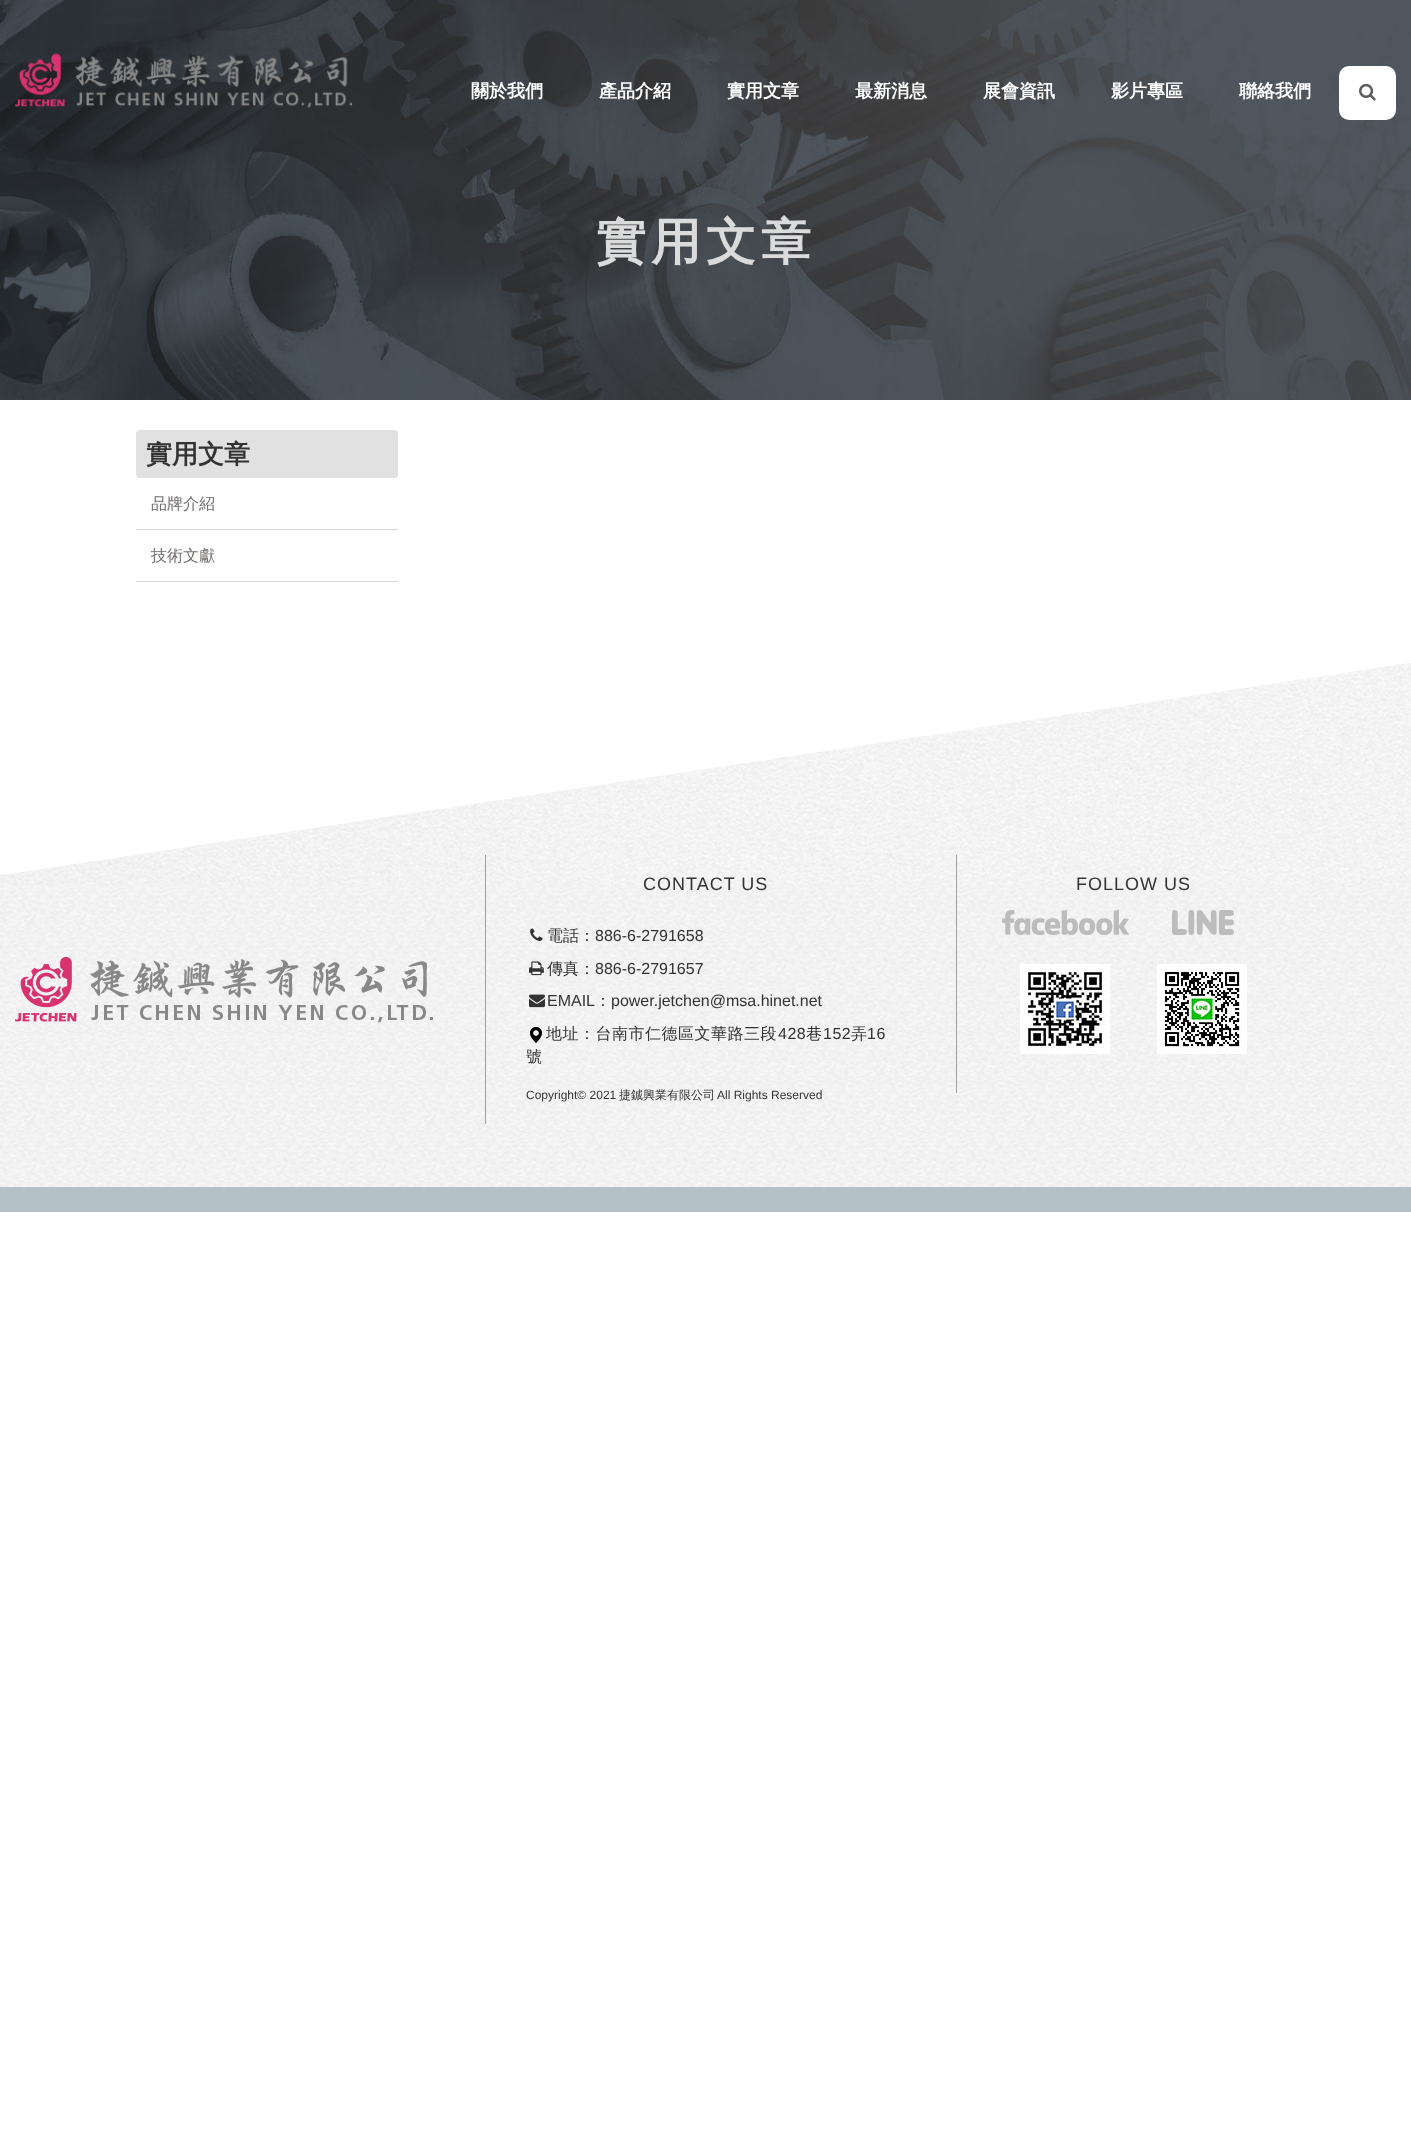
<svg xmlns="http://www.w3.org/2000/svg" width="1411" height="2145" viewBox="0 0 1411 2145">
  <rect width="100%" height="100%" fill="#fff"/>
  <image x="0" y="0" width="1411" height="400" href="img/3.png"/>
  <image x="15" y="53" width="338" height="55" href="img/1.png"/>
  <rect x="1339" y="66" width="57" height="54" rx="10" fill="#fff"/>
  <image x="1359" y="83" width="17" height="18" href="img/2.png"/>
  <rect x="136" y="430" width="262" height="48" rx="4" fill="#e1e1e1"/>
  <path d="M136 529h262v1H136z" fill="#d7d7d7"/>
  <path d="M136 581h262v1H136z" fill="#d7d7d7"/>
  <image x="0" y="885" width="1411" height="302" href="img/4.png"/>
  <path d="M0 1187h1411v25H0z" fill="#b4c0c8"/>
  <image x="0" y="663" width="1411" height="222" href="img/5.png"/>
  <path d="M485 855h1v269H485z" fill="#a1a0a0"/>
  <image x="530" y="928" width="13" height="13" href="img/6.png"/>
  <image x="529" y="961" width="15" height="15" href="img/7.png"/>
  <image x="529" y="994" width="16" height="14" href="img/8.png"/>
  <image x="530" y="1027" width="12" height="16" href="img/9.png"/>
  <path d="M956 855h1v238H956z" fill="#a1a0a0"/>
  <image x="1002" y="910" width="127" height="25" href="img/10.png"/>
  <image x="1020" y="964" width="90" height="90" href="img/11.png"/>
  <image x="1172" y="910" width="62" height="25" href="img/12.png"/>
  <image x="1157" y="964" width="90" height="90" href="img/13.png"/>
  <image x="15" y="957" width="418" height="66" href="img/14.png"/>
  <g font-family="WenQuanYi Zen Hei" font-size="18" font-weight="bold" fill="#fff">
    <text x="471" y="97">關於我們</text>
    <text x="599" y="97">產品介紹</text>
    <text x="727" y="97">實用文章</text>
    <text x="855" y="97">最新消息</text>
    <text x="983" y="97">展會資訊</text>
    <text x="1111" y="97">影片專區</text>
    <text x="1239" y="97">聯絡我們</text>
  </g>
  <text x="596" y="259" font-family="WenQuanYi Zen Hei" font-size="50" font-weight="bold" letter-spacing="5" fill="#dbdbdb">實用文章</text>
  <text x="146" y="463" font-family="WenQuanYi Zen Hei" font-size="26" font-weight="bold" fill="#333">實用文章</text>
  <g font-family="WenQuanYi Zen Hei" font-size="16" font-weight="500" fill="#736d6d">
    <text x="151" y="509">品牌介紹</text>
    <text x="151" y="561">技術文獻</text>
  </g>
  <text x="643" y="890" font-family="Liberation Sans" font-size="18" letter-spacing="1" fill="#333">CONTACT US</text>
  <text x="547" y="941" font-family="WenQuanYi Zen Hei" font-size="16" font-weight="500" fill="#333">電話：</text>
  <text x="595" y="941" font-family="Liberation Sans" font-size="16" fill="#333">886-6-2791658</text>
  <text x="547" y="974" font-family="WenQuanYi Zen Hei" font-size="16" font-weight="500" fill="#333">傳真：</text>
  <g font-family="Liberation Sans" font-size="16" fill="#333">
    <text x="595" y="974">886-6-2791657</text>
    <text x="547" y="1006">EMAIL</text>
  </g>
  <text x="595" y="1006" font-family="WenQuanYi Zen Hei" font-size="16" font-weight="500" fill="#333">：</text>
  <text x="611" y="1006" font-family="Liberation Sans" font-size="16" fill="#333">power.jetchen@msa.hinet.net</text>
  <text x="546" y="1039" font-family="WenQuanYi Zen Hei" font-size="16" font-weight="500" letter-spacing="0.5" fill="#333">地址：台南市仁德區文華路三段</text>
  <text x="778" y="1039" font-family="Liberation Sans" font-size="16" letter-spacing="0.5" fill="#333">428</text>
  <text x="806" y="1039" font-family="WenQuanYi Zen Hei" font-size="16" font-weight="500" letter-spacing="0.5" fill="#333">巷</text>
  <text x="823" y="1039" font-family="Liberation Sans" font-size="16" letter-spacing="0.5" fill="#333">152</text>
  <text x="851" y="1039" font-family="WenQuanYi Zen Hei" font-size="16" font-weight="500" letter-spacing="0.5" fill="#333">弄</text>
  <text x="867" y="1039" font-family="Liberation Sans" font-size="16" letter-spacing="0.5" fill="#333">16</text>
  <text x="526" y="1062" font-family="WenQuanYi Zen Hei" font-size="16" font-weight="500" fill="#333">號</text>
  <text x="526" y="1099" font-family="Liberation Sans" font-size="12" fill="#333">Copyright© 2021</text>
  <text x="619" y="1099" font-family="WenQuanYi Zen Hei" font-size="12" font-weight="500" fill="#333">捷鋮興業有限公司</text>
  <text x="717" y="1099" font-family="Liberation Sans" font-size="12" fill="#333">All Rights Reserved</text>
  <text x="1076" y="890" font-family="Liberation Sans" font-size="18" letter-spacing="1" fill="#333">FOLLOW US</text>
</svg>
